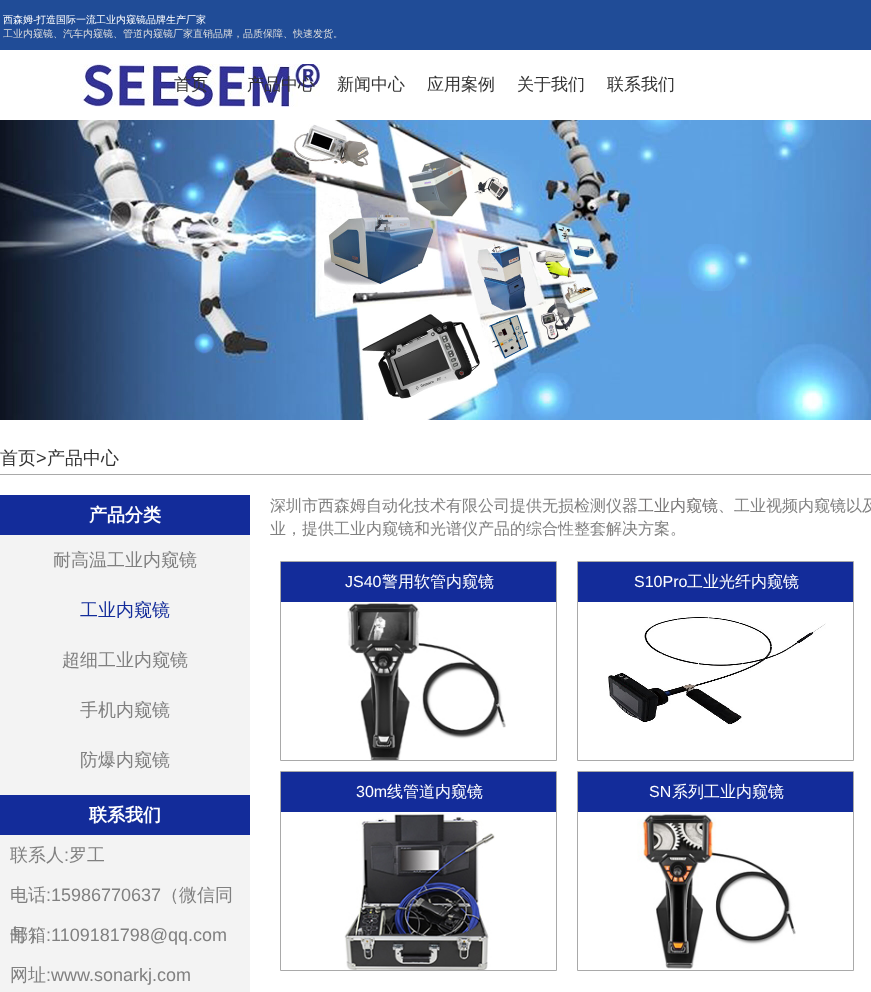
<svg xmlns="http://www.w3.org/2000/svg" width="871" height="992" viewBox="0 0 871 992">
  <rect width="100%" height="100%" fill="#fff"/>
  <path d="M0 0h871v50H0z" fill="#204c97"/>
  <image x="80" y="64" width="240" height="43" href="img/1.png"/>
  <image x="0" y="120" width="871" height="300" href="img/2.png"/>
  <path d="M0 474h871v1H0z" fill="#a9a9a9"/>
  <path d="M0 535h250v457H0z" fill="#f3f3f3"/>
  <path d="M0 495h250v40H0z" fill="#132c9a"/>
  <path d="M0 795h250v40H0z" fill="#132c9a"/>
  <path d="M280.5 561.5h276v199H280.5z" fill="none" stroke="#a9a9a9"/>
  <path d="M281 562h275v40H281z" fill="#132c9a"/>
  <image x="347" y="603" width="159" height="157" href="img/3.png"/>
  <path d="M577.5 561.5h276v199H577.5z" fill="none" stroke="#a9a9a9"/>
  <path d="M578 562h275v40H578z" fill="#132c9a"/>
  <image x="608" y="617" width="218" height="108" href="img/4.png"/>
  <path d="M280.5 771.5h276v199H280.5z" fill="none" stroke="#a9a9a9"/>
  <path d="M281 772h275v40H281z" fill="#132c9a"/>
  <image x="344" y="813" width="151" height="157" href="img/5.png"/>
  <path d="M577.5 771.5h276v199H577.5z" fill="none" stroke="#a9a9a9"/>
  <path d="M578 772h275v40H578z" fill="#132c9a"/>
  <image x="637" y="814" width="159" height="155" href="img/6.png"/>
  <text x="3" y="23" font-family="WenQuanYi Zen Hei" font-size="10" font-weight="500" fill="#fff">西森姆</text>
  <text x="33" y="23" font-family="Liberation Sans" font-size="10" fill="#fff">-</text>
  <text x="36" y="23" font-family="WenQuanYi Zen Hei" font-size="10" font-weight="500" fill="#fff">打造国际一流工业内窥镜品牌生产厂家</text>
  <text x="3" y="37" font-family="WenQuanYi Zen Hei" font-size="10" font-weight="500" fill="#ddd">工业内窥镜、汽车内窥镜、管道内窥镜厂家直销品牌，品质保障、快速发货。</text>
  <g font-family="WenQuanYi Zen Hei" font-size="17" font-weight="500" fill="#333">
    <text x="174" y="90">首页</text>
    <text x="247" y="90">产品中心</text>
    <text x="337" y="90">新闻中心</text>
    <text x="427" y="90">应用案例</text>
    <text x="517" y="90">关于我们</text>
    <text x="607" y="90">联系我们</text>
  </g>
  <text x="0" y="464" font-family="WenQuanYi Zen Hei" font-size="18" font-weight="500" fill="#333">首页</text>
  <text x="36" y="464" font-family="Liberation Sans" font-size="18" fill="#333">&gt;</text>
  <text x="47" y="464" font-family="WenQuanYi Zen Hei" font-size="18" font-weight="500" fill="#333">产品中心</text>
  <text x="89" y="521" font-family="WenQuanYi Zen Hei" font-size="18" font-weight="bold" fill="#fff">产品分类</text>
  <text x="53" y="566" font-family="WenQuanYi Zen Hei" font-size="18" font-weight="500" fill="#808080">耐高温工业内窥镜</text>
  <text x="80" y="616" font-family="WenQuanYi Zen Hei" font-size="18" font-weight="500" fill="#132c9a">工业内窥镜</text>
  <g font-family="WenQuanYi Zen Hei" font-size="18" font-weight="500" fill="#808080">
    <text x="62" y="666">超细工业内窥镜</text>
    <text x="80" y="716">手机内窥镜</text>
    <text x="80" y="766">防爆内窥镜</text>
  </g>
  <text x="89" y="821" font-family="WenQuanYi Zen Hei" font-size="18" font-weight="bold" fill="#fff">联系我们</text>
  <text x="10" y="861" font-family="WenQuanYi Zen Hei" font-size="18" font-weight="500" fill="#808080">联系人</text>
  <text x="64" y="861" font-family="Liberation Sans" font-size="18" fill="#808080">:</text>
  <g font-family="WenQuanYi Zen Hei" font-size="18" font-weight="500" fill="#808080">
    <text x="69" y="861">罗工</text>
    <text x="10" y="901">电话</text>
  </g>
  <text x="46" y="901" font-family="Liberation Sans" font-size="18" fill="#808080">:15986770637</text>
  <g font-family="WenQuanYi Zen Hei" font-size="18" font-weight="500" fill="#808080">
    <text x="161" y="901">（微信同</text>
    <text x="10" y="941">号）</text>
    <text x="10" y="941">邮箱</text>
  </g>
  <text x="46" y="941" font-family="Liberation Sans" font-size="18" fill="#808080">:1109181798@qq.com</text>
  <text x="10" y="981" font-family="WenQuanYi Zen Hei" font-size="18" font-weight="500" fill="#808080">网址</text>
  <text x="46" y="981" font-family="Liberation Sans" font-size="18" fill="#808080">:www.sonarkj.com</text>
  <text x="270" y="511" font-family="WenQuanYi Zen Hei" font-size="16" font-weight="500" fill="#808080">深圳市西森姆自动化技术有限公司提供无损检测仪器</text>
  <text x="638" y="511" font-family="WenQuanYi Zen Hei" font-size="16" font-weight="500" fill="#757373">工业内窥镜</text>
  <g font-family="WenQuanYi Zen Hei" font-size="16" font-weight="500" fill="#808080">
    <text x="718" y="511">、工业视频内窥镜以及</text>
    <text x="270" y="534">业，提供工业内窥镜和光谱仪产品的综合性整套解决方案。</text>
  </g>
  <text x="345" y="587" font-family="Liberation Sans" font-size="16" fill="#fff">JS40</text>
  <text x="382" y="587" font-family="WenQuanYi Zen Hei" font-size="16" font-weight="500" fill="#fff">警用软管内窥镜</text>
  <text x="634" y="587" font-family="Liberation Sans" font-size="16" fill="#fff">S10Pro</text>
  <text x="687" y="587" font-family="WenQuanYi Zen Hei" font-size="16" font-weight="500" fill="#fff">工业光纤内窥镜</text>
  <text x="356" y="797" font-family="Liberation Sans" font-size="16" fill="#fff">30m</text>
  <text x="387" y="797" font-family="WenQuanYi Zen Hei" font-size="16" font-weight="500" fill="#fff">线管道内窥镜</text>
  <text x="649" y="797" font-family="Liberation Sans" font-size="16" fill="#fff">SN</text>
  <text x="672" y="797" font-family="WenQuanYi Zen Hei" font-size="16" font-weight="500" fill="#fff">系列工业内窥镜</text>
</svg>
